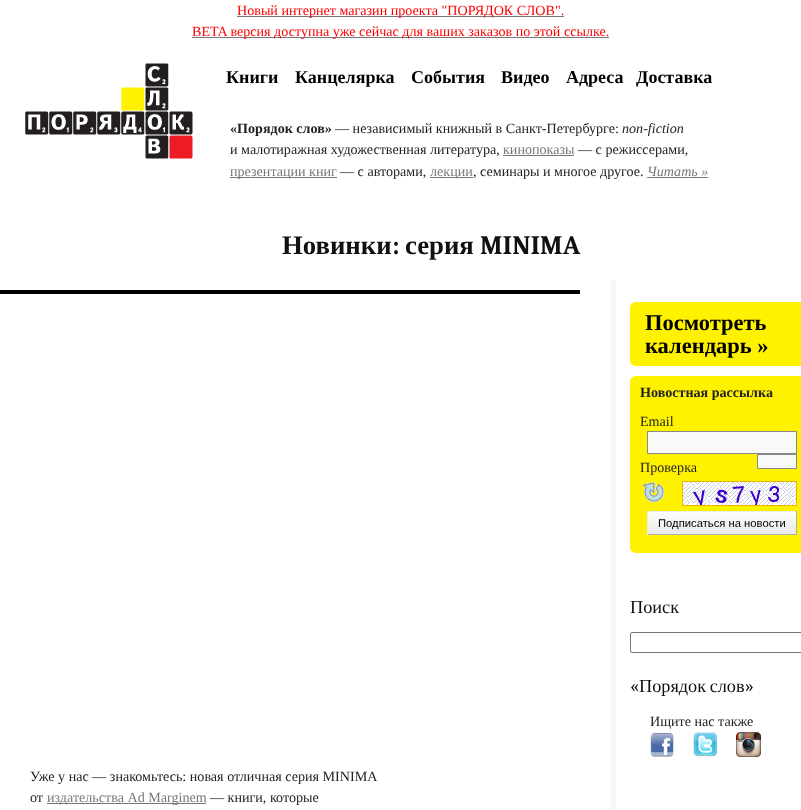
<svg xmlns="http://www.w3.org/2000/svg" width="801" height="810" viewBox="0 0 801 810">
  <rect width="100%" height="100%" fill="#fff"/>
  <path d="M237 16h327v1H237z" fill="#777"/>
  <path d="M192 37h417v1H192z" fill="#777"/>
  <image x="25" y="63" width="168" height="96" href="img/1.png"/>
  <path d="M503 155h71v1H503z" fill="#777"/>
  <path d="M230 177h107v1H230z" fill="#777"/>
  <path d="M430 177h43v1H430z" fill="#777"/>
  <path d="M647 177h61v1H647z" fill="#777"/>
  <path d="M610 280h6v530H610z" fill="#f8f8f8"/>
  <image x="630" y="302" width="171" height="64" href="img/2.png"/>
  <image x="630" y="376" width="171" height="6" href="img/3.png"/>
  <path d="M630 382h171v165H630z" fill="#fff200"/>
  <path d="M647.5 431.5h149v22H647.5z" fill="#f9f9f9" stroke="#888"/>
  <path d="M757.5 454.5h39v14H757.5z" fill="#f9f9f9" stroke="#888"/>
  <image x="643" y="482" width="21" height="20" href="img/4.png"/>
  <image x="682" y="481" width="115" height="25" href="img/5.png"/>
  <image x="648" y="512" width="148" height="22" href="img/6.png"/>
  <path d="M647 511h150v1H647z" fill="#ececec"/>
  <path d="M796 511h1v24H796z" fill="#adadad"/>
  <path d="M647 534h150v1H647z" fill="#adadad"/>
  <path d="M647 511h1v24H647z" fill="#ececec"/>
  <image x="630" y="547" width="171" height="6" href="img/7.png"/>
  <rect x="630.5" y="632.5" width="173" height="20" rx="1.5" fill="none" stroke="#767676"/>
  <image x="650" y="732" width="24" height="25" href="img/8.png"/>
  <image x="693" y="732" width="25" height="25" href="img/9.png"/>
  <image x="736" y="732" width="25" height="25" href="img/10.png"/>
  <path d="M0 290h580v4H0z" fill="#000"/>
  <path d="M47 803h159v1H47z" fill="#777"/>
  <g font-family="Liberation Serif" font-size="14.1" fill="#f00">
    <text x="237" y="15">Новый интернет магазин проекта "ПОРЯДОК СЛОВ".</text>
    <text x="192" y="36">BETA версия доступна уже сейчас для ваших заказов по этой ссылке.</text>
  </g>
  <g font-family="Liberation Serif" font-size="18" font-weight="bold" fill="#000">
    <text x="226" y="83">Книги</text>
    <text x="295" y="83">Канцелярка</text>
    <text x="411" y="83">События</text>
    <text x="501" y="83">Видео</text>
    <text x="566" y="83">Адреса</text>
    <text x="636" y="83">Доставка</text>
  </g>
  <text x="230" y="133" font-family="Liberation Serif" font-size="14.1" font-weight="bold" fill="#222">«Порядок слов»</text>
  <text x="335" y="133" font-family="Liberation Serif" font-size="14.1" fill="#222">— независимый книжный в Санкт-Петербурге:</text>
  <text x="622" y="133" font-family="Liberation Serif" font-size="14.1" font-style="italic" fill="#222">non-fiction</text>
  <text x="230" y="154" font-family="Liberation Serif" font-size="14.1" fill="#222">и малотиражная художественная литература,</text>
  <text x="503" y="154" font-family="Liberation Serif" font-size="14.1" fill="#777">кинопоказы</text>
  <text x="578" y="154" font-family="Liberation Serif" font-size="14.1" fill="#222">— с режиссерами,</text>
  <text x="230" y="176" font-family="Liberation Serif" font-size="14.1" fill="#777">презентации книг</text>
  <text x="340" y="176" font-family="Liberation Serif" font-size="14.1" fill="#222">— с авторами,</text>
  <text x="430" y="176" font-family="Liberation Serif" font-size="14.1" fill="#777">лекции</text>
  <text x="473" y="176" font-family="Liberation Serif" font-size="14.1" fill="#222">, семинары и многое другое.</text>
  <text x="647" y="176" font-family="Liberation Serif" font-size="14.1" font-style="italic" fill="#777">Читать »</text>
  <text x="282" y="254" font-family="Liberation Serif" font-size="26.75" font-weight="bold" fill="#111">Новинки</text>
  <text x="392" y="254" font-family="Caladea" font-size="26.75" font-weight="bold" fill="#111">:</text>
  <text x="405" y="254" font-family="Liberation Serif" font-size="26.75" font-weight="bold" fill="#111">серия</text>
  <text x="480" y="254" font-family="Caladea" font-size="26.75" font-weight="bold" fill="#111">MINIMA</text>
  <g font-family="Liberation Serif" font-size="22.5" font-weight="bold" fill="#000">
    <text x="645" y="330">Посмотреть</text>
    <text x="645" y="353">календарь »</text>
  </g>
  <text x="640" y="397" font-family="Liberation Serif" font-size="14.1" font-weight="bold" fill="#222">Новостная рассылка</text>
  <g font-family="Liberation Serif" font-size="14.1" fill="#222">
    <text x="640" y="426">Email</text>
    <text x="640" y="472">Проверка</text>
  </g>
  <text x="658" y="527" font-family="Liberation Sans" font-size="11.25" fill="#000">Подписаться на новости</text>
  <text x="630" y="613" font-family="Liberation Serif" font-size="18.25" fill="#111">Поиск</text>
  <text x="630" y="692" font-family="Caladea" font-size="18.25" fill="#111">«</text>
  <text x="639" y="692" word-spacing="-1" font-family="Liberation Serif" font-size="18.25" fill="#111">Порядок слов</text>
  <text x="745" y="692" font-family="Caladea" font-size="18.25" fill="#111">»</text>
  <g font-family="Liberation Serif" font-size="14.1" fill="#222">
    <text x="650" y="726">Ищите нас также</text>
    <text x="30" y="781">Уже у нас — знакомьтесь: новая отличная серия MINIMA</text>
    <text x="30" y="802">от</text>
  </g>
  <text x="47" y="802" font-family="Liberation Serif" font-size="14.1" fill="#777">издательства Ad Marginem</text>
  <text x="210" y="802" font-family="Liberation Serif" font-size="14.1" fill="#222">— книги, которые</text>
</svg>
